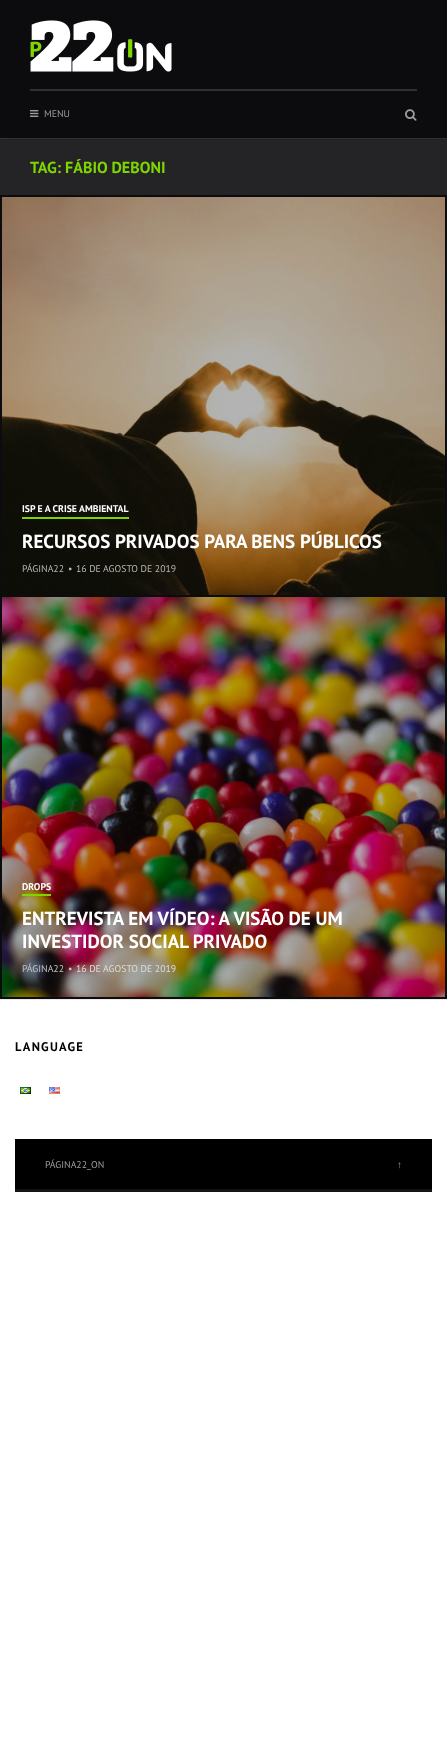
<svg xmlns="http://www.w3.org/2000/svg" width="447" height="1756" viewBox="0 0 447 1756">
  <rect width="100%" height="100%" fill="#fff"/>
  <path d="M0 139h447v56H0z" fill="#242426"/>
  <path d="M0 138h447v1H0z" fill="#3a3a3c"/>
  <path d="M1 0h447v138H1z" fill="#00000073" filter="blur(1px)"/>
  <path d="M0 0h447v138H0z" fill="#0c0c0e"/>
  <path d="M30 89h387v2H30z" fill="#303032"/>
  <image x="30" y="20" width="142" height="52" href="img/1.png"/>
  <image x="30" y="110" width="9" height="7" href="img/2.png"/>
  <image x="405" y="109" width="12" height="12" href="img/3.png"/>
  <path d="M0 195h447v400H0z" fill="#0c0c0e"/>
  <image x="2" y="197" width="443" height="398" href="img/4.png"/>
  <path d="M22 517h107v2H22z" fill="#7ed500"/>
  <path d="M1 596h445v402H1z" fill="none" stroke="#0c0c0e" stroke-width="2"/>
  <image x="2" y="597" width="443" height="400" href="img/5.png"/>
  <path d="M22 894h29v2H22z" fill="#7ed500"/>
  <path d="M0 999h447v1H0z" fill="#ebebeb"/>
  <image x="20" y="1087" width="11" height="7" href="img/6.png"/>
  <image x="49" y="1087" width="11" height="7" href="img/7.png"/>
  <path d="M15 1139h417v50H15z" fill="#000"/>
  <path d="M15 1189h417v3H15z" fill="#141414"/>
  <text x="44" y="117" font-family="PT Sans" font-size="9.75" fill="#9c9fa0">MENU</text>
  <text x="30" y="173" font-family="PT Sans" font-size="16" font-weight="bold" fill="#7ed500">TAG: FÁBIO DEBONI</text>
  <text x="22" y="512" font-family="PT Sans" font-size="9.75" font-weight="bold" fill="#fff">ISP E A CRISE AMBIENTAL</text>
  <text x="22" y="548" font-family="PT Sans" font-size="19" font-weight="bold" fill="#fff">RECURSOS PRIVADOS PARA BENS PÚBLICOS</text>
  <g font-family="PT Sans" font-size="9.75" fill="#b7b7b5">
    <text x="22" y="572">PÁGINA22</text>
    <text x="68" y="572">•</text>
    <text x="76" y="572">16 DE AGOSTO DE 2019</text>
  </g>
  <text x="22" y="890" font-family="PT Sans" font-size="9.75" font-weight="bold" fill="#fff">DROPS</text>
  <g font-family="PT Sans" font-size="19" font-weight="bold" fill="#fff">
    <text x="22" y="925">ENTREVISTA EM VÍDEO: A VISÃO DE UM</text>
    <text x="22" y="948">INVESTIDOR SOCIAL PRIVADO</text>
  </g>
  <text x="22" y="972" font-family="PT Sans" font-size="9.75" fill="#c2c3c5">PÁGINA22</text>
  <text x="68" y="972" font-family="PT Sans" font-size="9.75" fill="#d2c0c4">•</text>
  <text x="76" y="972" font-family="PT Sans" font-size="9.75" fill="#e0dbd6">16 DE AGOSTO DE 2019</text>
  <text x="15" y="1051" font-family="PT Sans" font-size="12.5" font-weight="bold" letter-spacing="1.25" fill="#000">LANGUAGE</text>
  <text x="45" y="1168" font-family="PT Sans" font-size="9.75" fill="#9c9fa0">PÁGINA22_ON</text>
  <text x="397" y="1168" font-family="Liberation Sans" font-size="9.75" fill="#9c9fa0">↑</text>
</svg>
